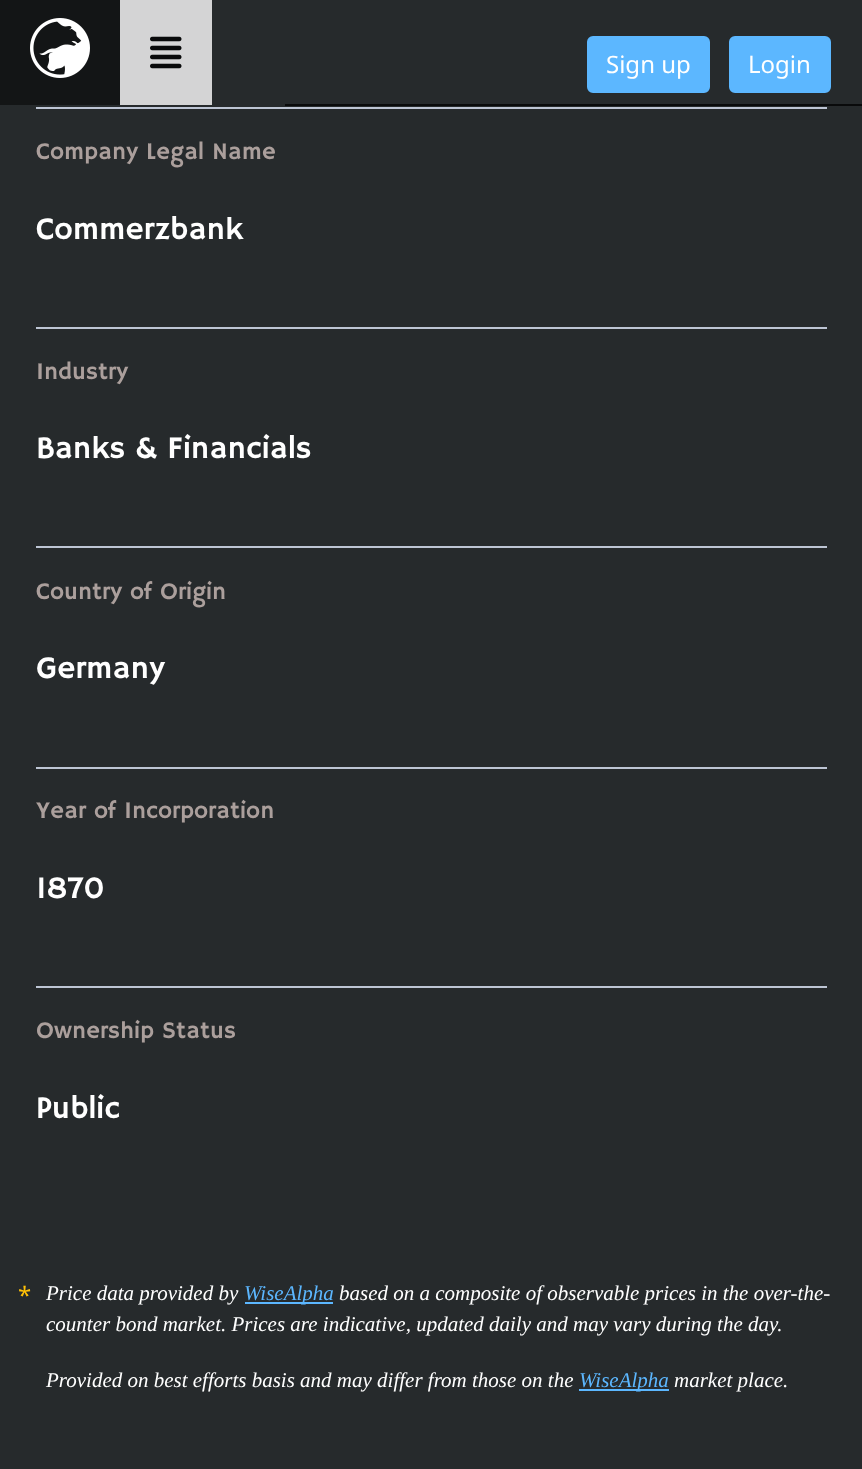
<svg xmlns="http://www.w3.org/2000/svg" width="862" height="1469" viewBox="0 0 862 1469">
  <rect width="100%" height="100%" fill="#262a2c"/>
  <path d="M0 0h120v105H0z" fill="#131516"/>
  <image x="30" y="18" width="60" height="60" href="img/1.png"/>
  <path d="M120 0h92v105H120z" fill="#d4d4d5"/>
  <image x="150" y="36" width="32" height="33" href="img/2.png"/>
  <path d="M285 104h577v2H285z" fill="#090a0b"/>
  <rect x="588" y="37" width="121" height="55" rx="5" fill="#5cb7ff" stroke="#5cb7ff" stroke-width="2"/>
  <rect x="730" y="37" width="100" height="55" rx="5" fill="#5cb7ff" stroke="#5cb7ff" stroke-width="2"/>
  <path d="M36 107h791v2H36z" fill="#bdc5d4"/>
  <path d="M36 327h791v2H36z" fill="#bdc5d4"/>
  <path d="M36 546h791v2H36z" fill="#bdc5d4"/>
  <path d="M36 767h791v2H36z" fill="#bdc5d4"/>
  <path d="M36 986h791v2H36z" fill="#bdc5d4"/>
  <path d="M245 1302h88v2H245z" fill="#5cb7ff"/>
  <path d="M579 1389h90v2H579z" fill="#5cb7ff"/>
  <g font-family="Noto Sans" font-size="24" fill="#fff">
    <text x="606" y="73">Sign up</text>
    <text x="748" y="73">Login</text>
  </g>
  <text x="36" y="159" font-family="Hammersmith One" font-size="24" fill="#ab9f9c">Company Legal Name</text>
  <text x="36" y="239" font-family="Hammersmith One" font-size="31.5" fill="#fff">Commerzbank</text>
  <text x="36" y="379" font-family="Hammersmith One" font-size="24" fill="#ab9f9c">Industry</text>
  <text x="36" y="458" font-family="Hammersmith One" font-size="31.5" fill="#fff">Banks &amp; Financials</text>
  <text x="36" y="599" font-family="Hammersmith One" font-size="24" fill="#ab9f9c">Country of Origin</text>
  <text x="36" y="678" font-family="Hammersmith One" font-size="31.5" fill="#fff">Germany</text>
  <text x="36" y="818" font-family="Hammersmith One" font-size="24" fill="#ab9f9c">Year of Incorporation</text>
  <text x="36" y="898" font-family="Hammersmith One" font-size="31.5" fill="#fff">1870</text>
  <text x="36" y="1038" font-family="Hammersmith One" font-size="24" fill="#ab9f9c">Ownership Status</text>
  <text x="36" y="1118" font-family="Hammersmith One" font-size="31.5" fill="#fff">Public</text>
  <text x="18" y="1304" font-family="Noto Sans" font-size="24" fill="#ffc107">*</text>
  <text x="46" y="1300" font-family="Liberation Serif" font-size="21" font-style="italic" fill="#fff">Price data provided by</text>
  <text x="244" y="1300" font-family="Liberation Serif" font-size="21" font-style="italic" fill="#5cb7ff">WiseAlpha</text>
  <g font-family="Liberation Serif" font-size="21" font-style="italic" fill="#fff">
    <text x="339" y="1300">based on a composite of observable prices in the over-the-</text>
    <text x="46" y="1331">counter bond market. Prices are indicative, updated daily and may vary during the day.</text>
    <text x="46" y="1387">Provided on best efforts basis and may differ from those on the</text>
  </g>
  <text x="579" y="1387" font-family="Liberation Serif" font-size="21" font-style="italic" fill="#5cb7ff">WiseAlpha</text>
  <text x="674" y="1387" font-family="Liberation Serif" font-size="21" font-style="italic" fill="#fff">market place.</text>
</svg>
